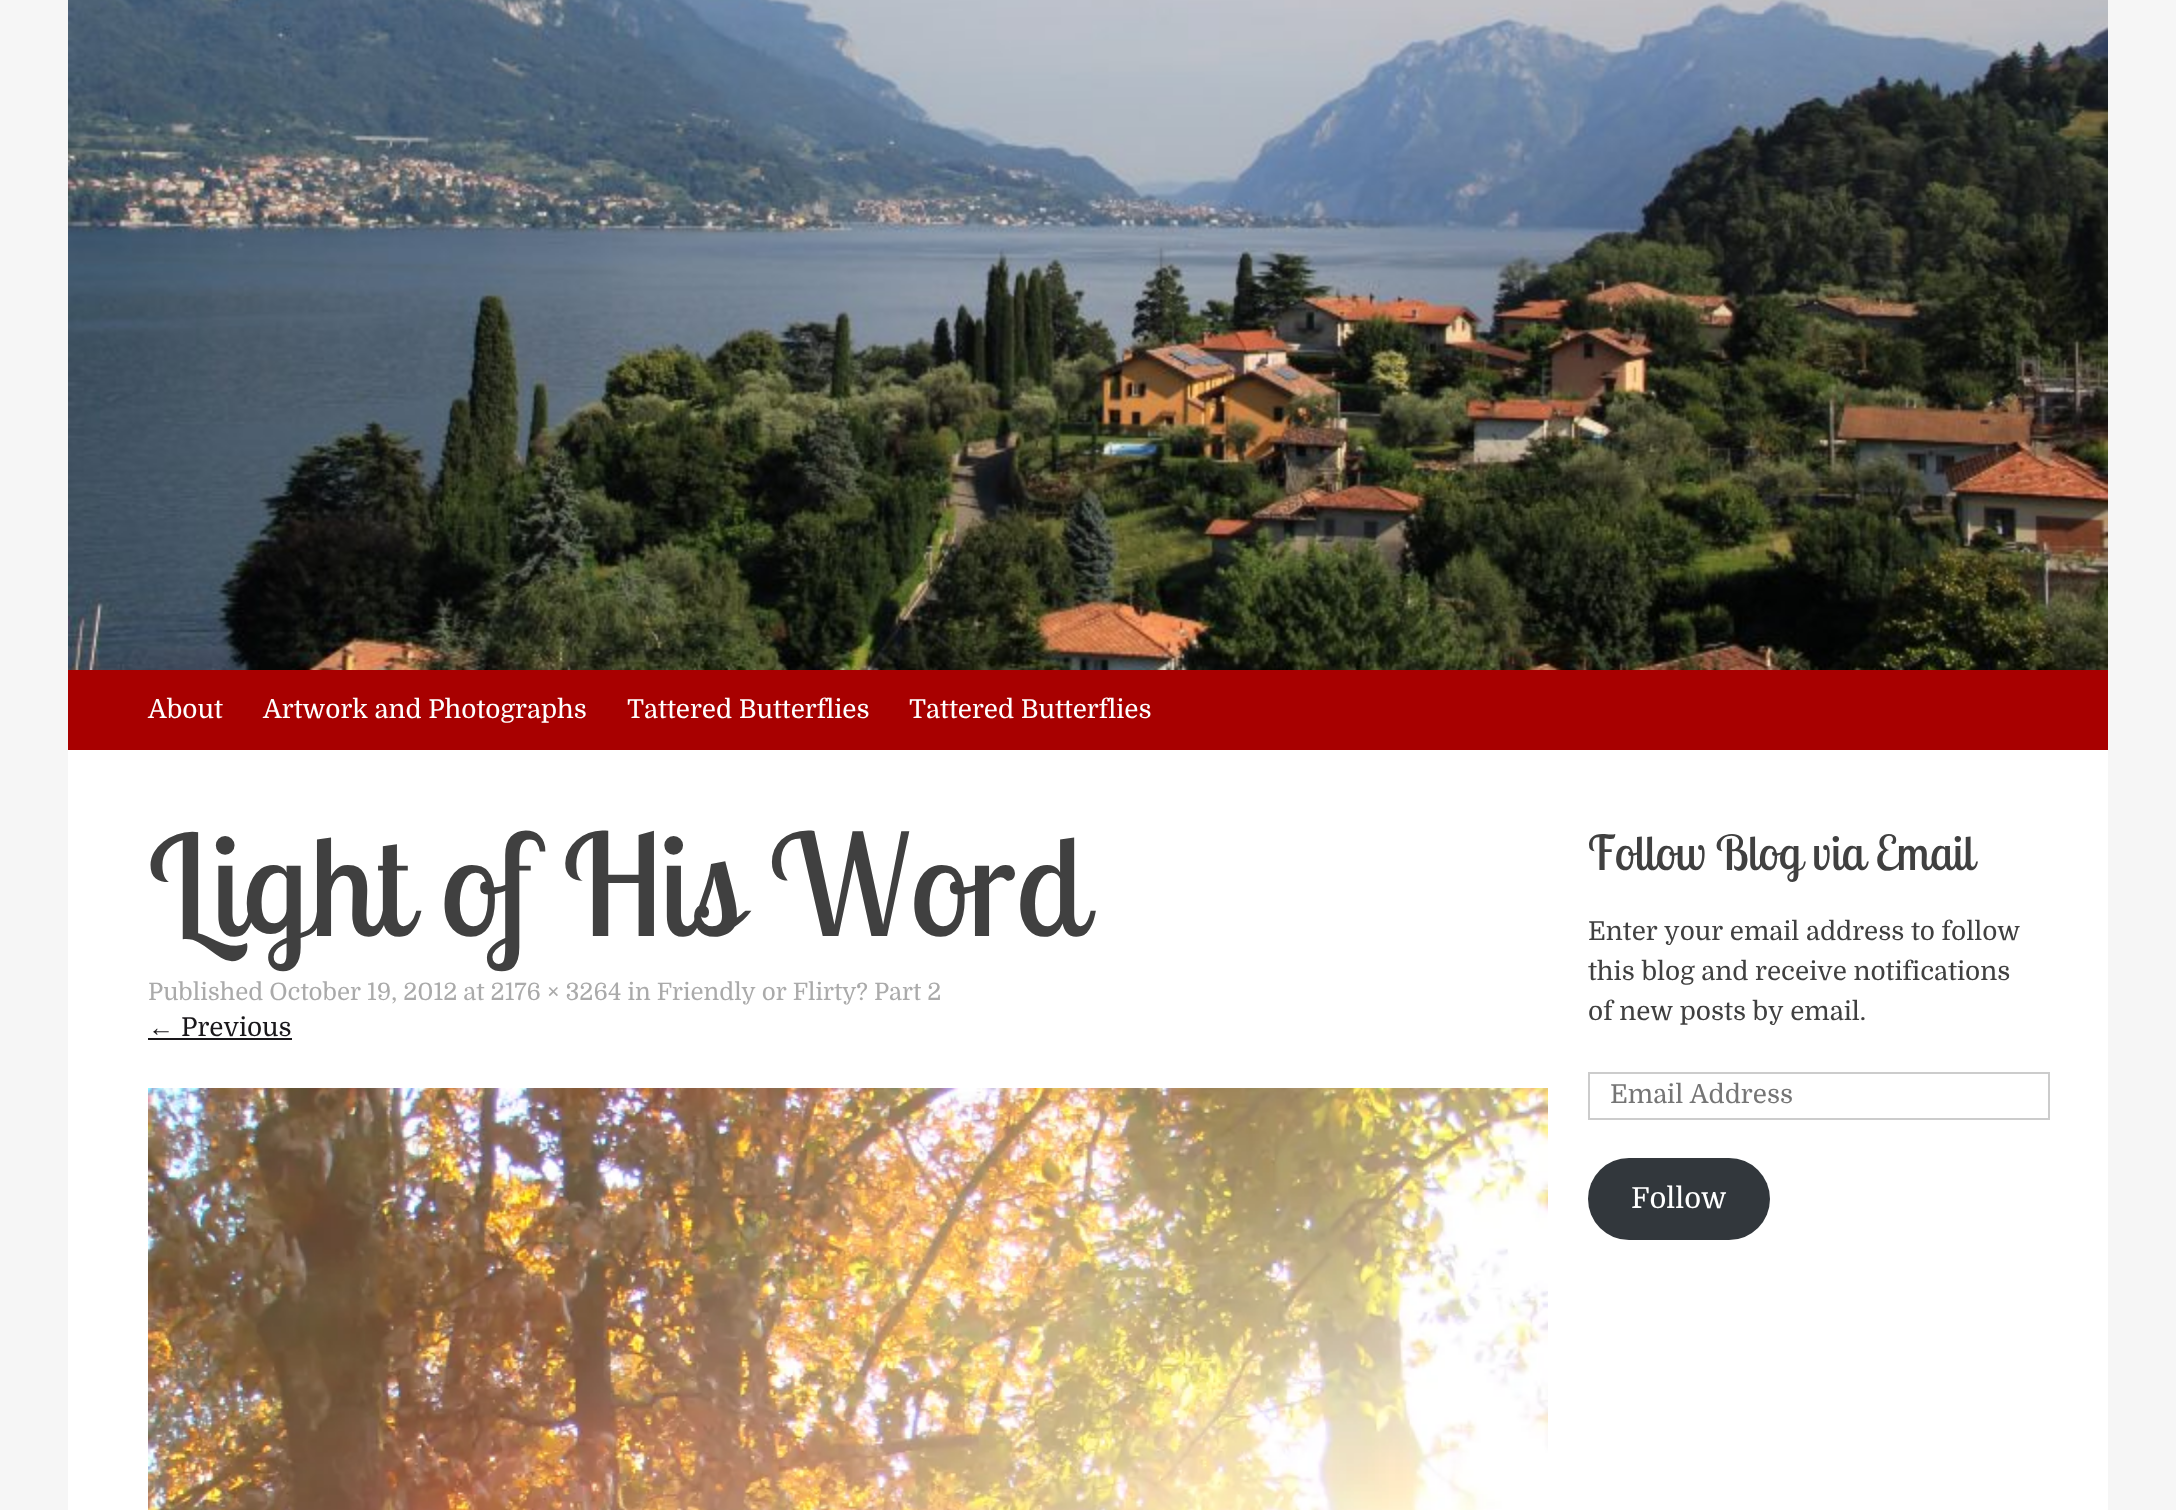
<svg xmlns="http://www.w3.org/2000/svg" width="2176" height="1510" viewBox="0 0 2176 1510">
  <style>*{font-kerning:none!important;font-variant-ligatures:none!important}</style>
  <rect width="100%" height="100%" fill="#f6f6f6"/>
  <path d="M68 750h2040v760H68z" fill="#fff"/>
  <image x="68" y="0" width="2040" height="670" href="img/1.png"/>
  <path d="M68 670h2040v80H68z" fill="#a80000"/>
  <path d="M148 1038h144v2H148z" fill="#19171a"/>
  <image x="148" y="1088" width="1400" height="422" href="img/2.png"/>
  <path d="M1589 1073h460v46H1589z" fill="none" stroke="#ccc" stroke-width="2"/>
  <rect x="1588" y="1158" width="182" height="82" rx="41" fill="#32373c"/>
  <g font-family="Domine" font-size="26" fill="#fff">
    <text x="148" y="718">About</text>
    <text x="263" y="718">Artwork and Photographs</text>
    <text x="627" y="718">Tattered Butterflies</text>
    <text x="909" y="718">Tattered Butterflies</text>
  </g>
  <text x="148" y="936" font-family="Lobster Two" font-size="140.75" fill="#404040">Light of His Word</text>
  <text x="148" y="1000" font-family="Domine" font-size="24" fill="#aaa">Published October 19, 2012 at 2176 × 3264 in Friendly or Flirty? Part 2</text>
  <text x="148" y="1036" font-family="Liberation Serif" font-size="26" fill="#19171a">←</text>
  <text x="181" y="1036" font-family="Domine" font-size="26" fill="#19171a">Previous</text>
  <text x="1588" y="870" font-family="Lobster Two" font-size="48" fill="#404040">Follow Blog via Email</text>
  <g font-family="Domine" font-size="26" fill="#404040">
    <text x="1588" y="940">Enter your email address to follow</text>
    <text x="1588" y="980">this blog and receive notifications</text>
    <text x="1588" y="1020">of new posts by email.</text>
  </g>
  <text x="1610" y="1103" font-family="Domine" font-size="26" fill="#757575">Email Address</text>
  <text x="1631" y="1208" font-family="Domine" font-size="29" fill="#fff">Follow</text>
</svg>
